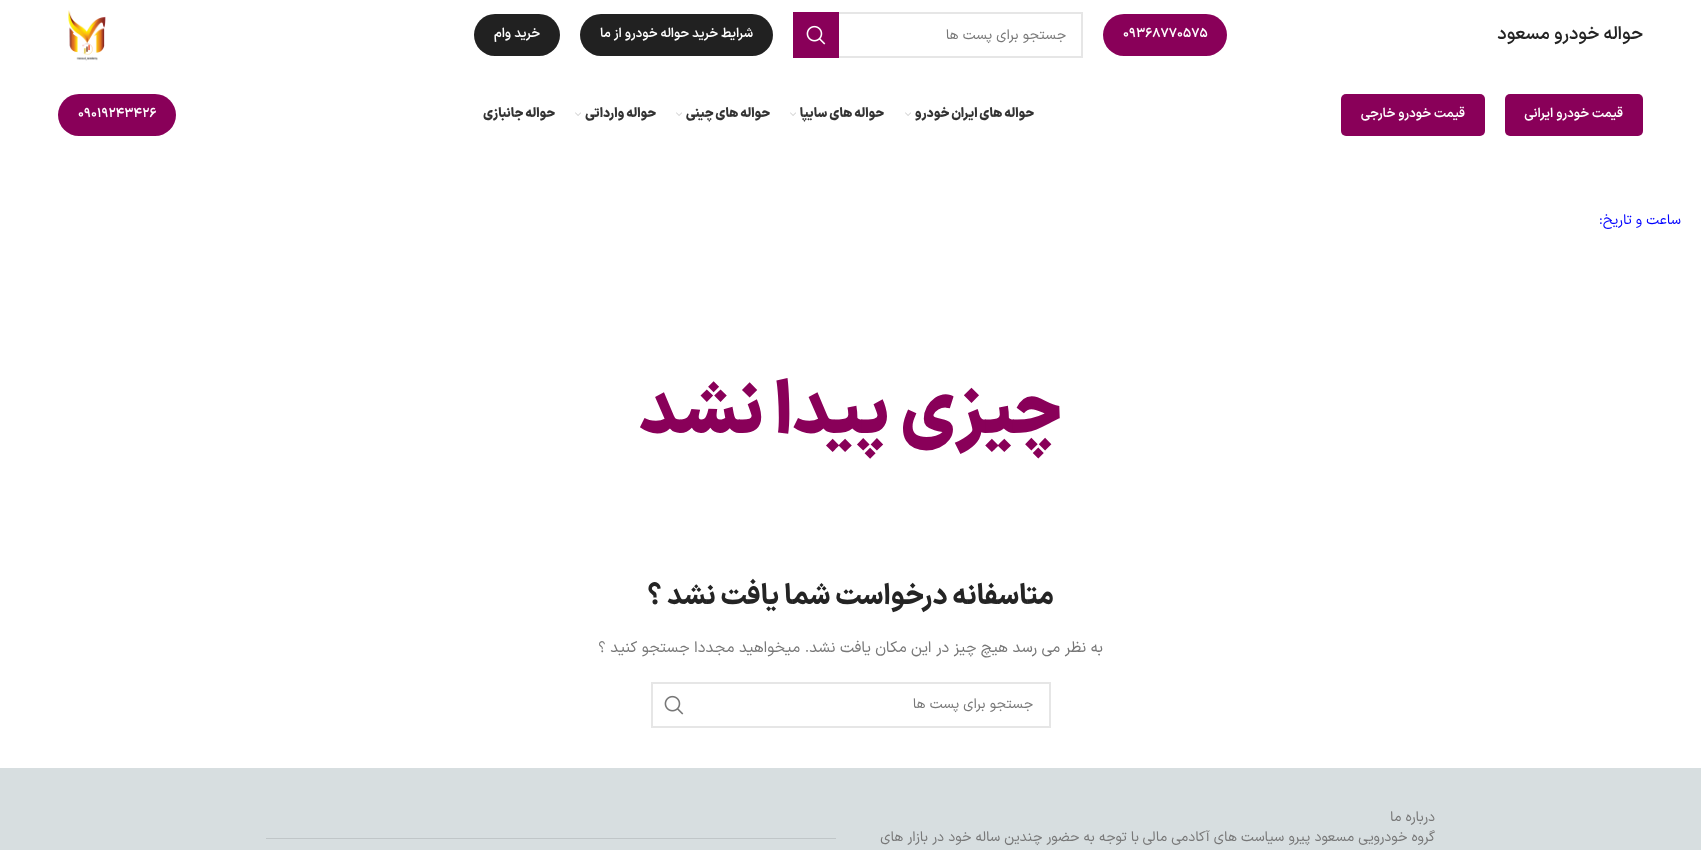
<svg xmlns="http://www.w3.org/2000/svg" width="1701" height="850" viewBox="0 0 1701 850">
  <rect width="100%" height="100%" fill="#fff"/>
  <rect x="1103" y="14" width="124" height="42" rx="21" fill="#890059"/>
  <path d="M794 13h288v44H794z" fill="none" stroke="#e6e6e6" stroke-width="2"/>
  <path d="M793 12h46v46H793z" fill="#890059"/>
  <image x="806" y="25" width="20" height="20" href="img/1.png"/>
  <rect x="580" y="14" width="193" height="42" rx="21" fill="#212121"/>
  <rect x="474" y="14" width="86" height="42" rx="21" fill="#212121"/>
  <image x="68" y="10" width="38" height="51" href="img/2.png"/>
  <rect x="1505" y="94" width="138" height="42" rx="5" fill="#890059"/>
  <rect x="1341" y="94" width="144" height="42" rx="5" fill="#890059"/>
  <image x="905" y="112" width="6" height="4" href="img/3.png"/>
  <image x="790" y="112" width="6" height="4" href="img/3.png"/>
  <image x="676" y="112" width="6" height="4" href="img/3.png"/>
  <image x="575" y="112" width="6" height="4" href="img/3.png"/>
  <rect x="58" y="94" width="118" height="42" rx="21" fill="#890059"/>
  <path d="M652 683h398v44H652z" fill="none" stroke="#e6e6e6" stroke-width="2"/>
  <image x="664" y="695" width="20" height="20" href="img/4.png"/>
  <path d="M0 768h1701v82H0z" fill="#d7dee0"/>
  <path d="M266 838h570v1H266z" fill="#c0c6c8"/>
  <text x="1643" y="39" font-family="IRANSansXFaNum" font-size="18" font-weight="600" direction="rtl" fill="#242424">حواله خودرو مسعود</text>
  <text x="1123" y="37" font-family="IRANSansXFaNum" font-size="13" font-weight="600" fill="#fff">09368770575</text>
  <text x="1066" y="39" font-family="IRANSansXFaNum" font-size="14" direction="rtl" fill="#777">جستجو برای پست ها</text>
  <g font-family="IRANSansXFaNum" font-size="13" font-weight="600" direction="rtl" fill="#fff">
    <text x="753" y="37">شرایط خرید حواله خودرو از ما</text>
    <text x="540" y="37">خرید وام</text>
    <text x="1623" y="117">قیمت خودرو ایرانی</text>
    <text x="1465" y="117">قیمت خودرو خارجی</text>
  </g>
  <g font-family="IRANSansXFaNum" font-size="13" font-weight="900" direction="rtl" fill="#333">
    <text x="1034" y="117">حواله های ایران خودرو</text>
    <text x="884" y="117">حواله های سایپا</text>
    <text x="770" y="117">حواله های چینی</text>
    <text x="656" y="117">حواله وارداتی</text>
    <text x="555" y="117">حواله جانبازی</text>
  </g>
  <text x="78" y="117" font-family="IRANSansXFaNum" font-size="13" font-weight="600" fill="#fff">09019243426</text>
  <text x="1681" y="224" font-family="IRANSansXFaNum" font-size="14" direction="rtl" fill="#00f">ساعت و تاریخ:</text>
  <text x="1062" y="433" font-family="IRANSansXFaNum" font-size="71.5" font-weight="900" direction="rtl" fill="#890059">چیزی پیدا نشد</text>
  <text x="1054" y="604" font-family="IRANSansXFaNum" font-size="28" font-weight="800" direction="rtl" fill="#242424">متاسفانه درخواست شما یافت نشد ؟</text>
  <text x="1103" y="652" font-family="IRANSansXFaNum" font-size="15.4" direction="rtl" fill="#777">به نظر می رسد هیچ چیز در این مکان یافت نشد. میخواهید مجددا جستجو کنید ؟</text>
  <g font-family="IRANSansXFaNum" font-size="14" direction="rtl" fill="#777">
    <text x="1033" y="708">جستجو برای پست ها</text>
    <text x="1435" y="821">درباره ما</text>
    <text x="1435" y="841">گروه خودرویی مسعود پیرو سیاست های آکادمی مالی</text>
    <text x="1139" y="841">با توجه به حضور چندین ساله خود در بازار های</text>
  </g>
</svg>
